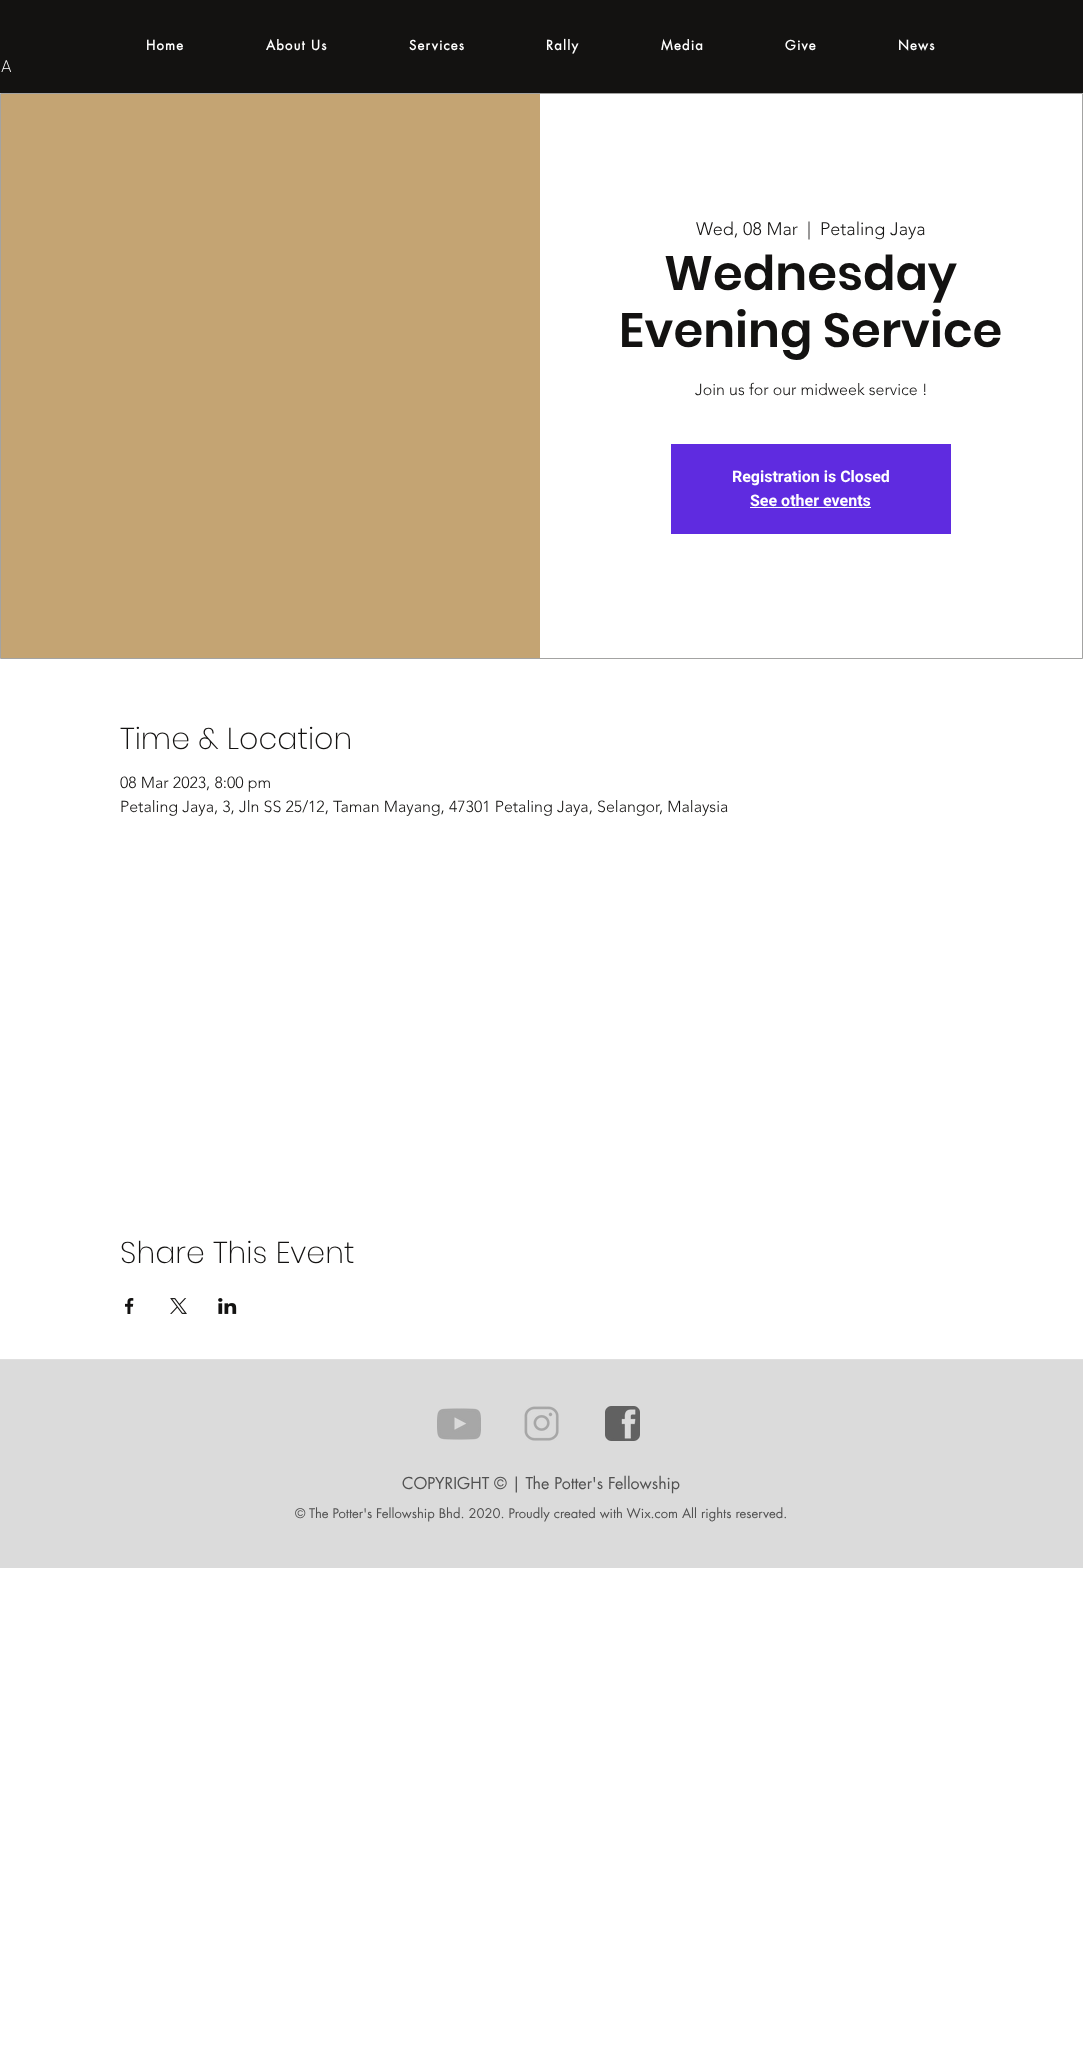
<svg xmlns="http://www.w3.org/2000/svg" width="1083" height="2048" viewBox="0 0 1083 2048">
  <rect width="100%" height="100%" fill="#fff"/>
  <path d="M0 0h1083v93H0z" fill="#131211"/>
  <path d="M0.5 93.5h1082v565H0.5z" fill="none" stroke="#a3a3a2"/>
  <path d="M1 94h539v564H1z" fill="#c4a473"/>
  <path d="M671 444h280v90H671z" fill="#5f2be0"/>
  <path d="M750 507h121v1H750z" fill="#fff"/>
  <image x="125" y="1298" width="9" height="16" href="img/1.png"/>
  <image x="170" y="1298" width="17" height="16" href="img/2.png"/>
  <image x="218" y="1298" width="19" height="16" href="img/3.png"/>
  <path d="M0 1360h1083v208H0z" fill="#dbdbdb"/>
  <path d="M0 1359h1083v1H0z" fill="#e0e0e0"/>
  <image x="437" y="1408" width="44" height="32" href="img/4.png"/>
  <image x="524" y="1406" width="35" height="35" href="img/5.png"/>
  <image x="605" y="1406" width="35" height="35" href="img/6.png"/>
  <g font-family="futura" font-size="13" font-weight="bold" letter-spacing="1.25" fill="#fff">
    <text x="146" y="50">Home</text>
    <text x="266" y="50">About Us</text>
    <text x="409" y="50">Services</text>
    <text x="546" y="50">Rally</text>
    <text x="661" y="50">Media</text>
    <text x="785" y="50">Give</text>
    <text x="898" y="50">News</text>
  </g>
  <text x="1" y="72" font-family="Poppins" font-size="17" font-weight="200" letter-spacing="3" fill="#fff">A</text>
  <g font-family="'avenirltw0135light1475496'" font-size="18" font-weight="300" fill="#131211">
    <text x="696" y="235">Wed, 08 Mar</text>
    <text x="807" y="235">|</text>
    <text x="820" y="235">Petaling Jaya</text>
  </g>
  <g font-family="Poppins" font-size="48" font-weight="600" fill="#131211">
    <text x="664" y="290">Wednesday</text>
    <text x="619" y="347">Evening Service</text>
  </g>
  <text x="695" y="395" font-family="'avenirltw0135light1475496'" font-size="16" font-weight="300" fill="#131211">Join us for our midweek service !</text>
  <g font-family="Roboto" font-size="16" font-weight="bold" fill="#fff">
    <text x="732" y="482">Registration is Closed</text>
    <text x="750" y="506">See other events</text>
  </g>
  <text x="120" y="749" font-family="Poppins" font-size="30" font-weight="200" fill="#131211">Time &amp; Location</text>
  <g font-family="'avenirltw0135light1475496'" font-size="16" font-weight="300" fill="#131211">
    <text x="120" y="788">08 Mar 2023, 8:00 pm</text>
    <text x="120" y="812">Petaling Jaya, 3, Jln SS 25/12, Taman Mayang, 47301 Petaling Jaya, Selangor, Malaysia</text>
  </g>
  <text x="120" y="1263" font-family="Poppins" font-size="30" font-weight="200" fill="#131211">Share This Event</text>
  <text x="402" y="1489" font-family="futura" font-size="16" fill="#515151">COPYRIGHT © | The Potter's Fellowship</text>
  <text x="295" y="1518" font-family="futura" font-size="13" fill="#515151">© The Potter's Fellowship Bhd. 2020. Proudly created with Wix.com All rights reserved.</text>
</svg>
